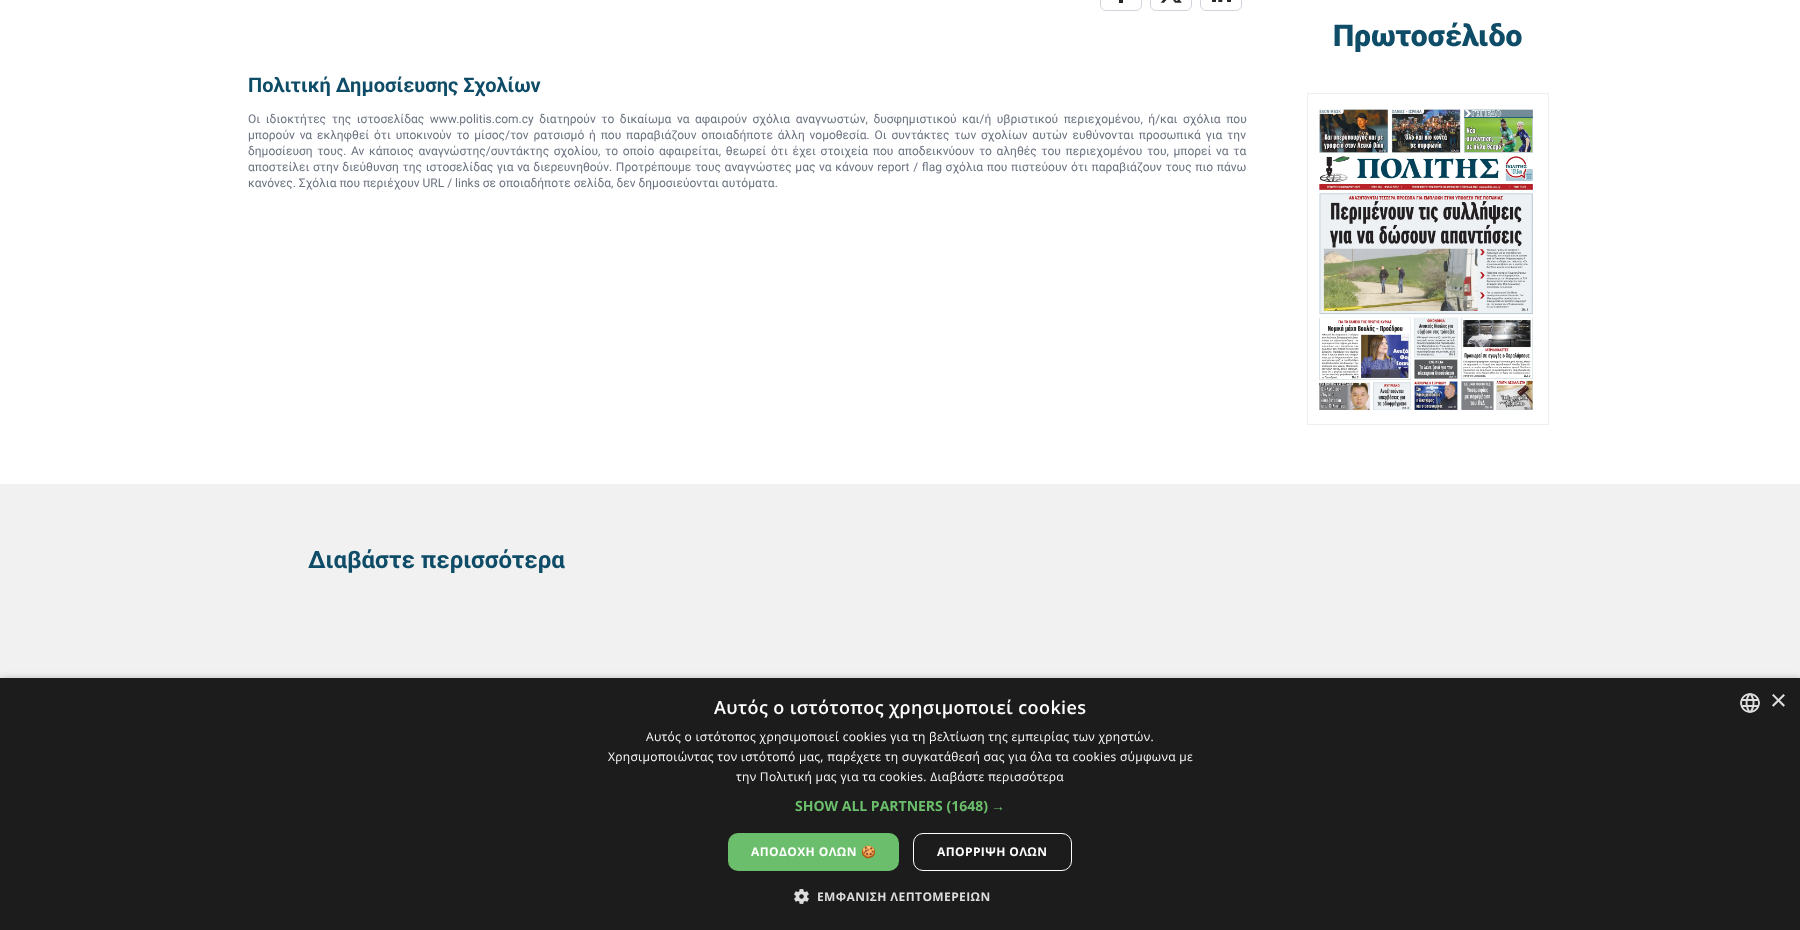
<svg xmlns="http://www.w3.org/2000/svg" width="1800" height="930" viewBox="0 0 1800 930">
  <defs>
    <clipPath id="clip1"><path d="M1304 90H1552V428H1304ZM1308 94H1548V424H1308Z" clip-rule="evenodd"/></clipPath>
  </defs>
  <rect width="100%" height="100%" fill="#fff"/>
  <g clip-path="url(#clip1)">
    <path d="M1307 93h242v332H1307z" fill="#efefef" filter="blur(0.5px)"/>
  </g>
  <image x="1319" y="109" width="214" height="302" href="img/1.png"/>
  <rect x="1100.5" y="-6.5" width="41" height="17" rx="5.5" fill="none" stroke="#d1d5db"/>
  <path d="M1119 0h4v3H1119z" fill="#262626"/>
  <rect x="1150.5" y="-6.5" width="41" height="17" rx="5.5" fill="none" stroke="#d1d5db"/>
  <image x="1160" y="0" width="22" height="3" href="img/2.png"/>
  <rect x="1200.5" y="-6.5" width="41" height="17" rx="5.5" fill="none" stroke="#d1d5db"/>
  <image x="1212" y="0" width="19" height="2" href="img/3.png"/>
  <path d="M0 484h1800v194H0z" fill="#f1f1f1"/>
  <path d="M1 680h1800v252H1z" fill="#00000059" filter="blur(4px)"/>
  <path d="M0 678h1800v252H0z" fill="#1c1c1c"/>
  <image x="1740" y="693" width="20" height="20" href="img/4.png"/>
  <rect x="728" y="833" width="171" height="38" rx="10" fill="#6bbe6b"/>
  <rect x="913.5" y="833.5" width="158" height="37" rx="9.5" fill="none" stroke="#fff"/>
  <image x="794" y="889" width="15" height="15" href="img/5.png"/>
  <text x="1333" y="46" font-family="Roboto" font-size="30" font-weight="900" fill="#0e4c67">Πρωτοσέλιδο</text>
  <text x="248" y="92" font-family="Roboto" font-size="20" font-weight="bold" fill="#0e4c67">Πολιτική Δημοσίευσης Σχολίων</text>
  <g font-family="Roboto" font-size="12" fill="#6b7280">
    <text x="248" y="123" word-spacing="2.6">Οι ιδιοκτήτες της ιστοσελίδας www.politis.com.cy διατηρούν το δικαίωμα να αφαιρούν σχόλια αναγνωστών, δυσφημιστικού και/ή υβριστικού περιεχομένου, ή/και σχόλια που</text>
    <text x="248" y="139" word-spacing="1.85">μπορούν να εκληφθεί ότι υποκινούν το μίσος/τον ρατσισμό ή που παραβιάζουν οποιαδήποτε άλλη νομοθεσία. Οι συντάκτες των σχολίων αυτών ευθύνονται προσωπικά για την</text>
    <text x="248" y="155" word-spacing="1.7">δημοσίευση τους. Αν κάποιος αναγνώστης/συντάκτης σχολίου, το οποίο αφαιρείται, θεωρεί ότι έχει στοιχεία που αποδεικνύουν το αληθές του περιεχομένου του, μπορεί να τα</text>
    <text x="248" y="171" word-spacing="0.7">αποστείλει στην διεύθυνση της ιστοσελίδας για να διερευνηθούν. Προτρέπουμε τους αναγνώστες μας να κάνουν report / flag σχόλια που πιστεύουν ότι παραβιάζουν τους πιο πάνω</text>
    <text x="248" y="187">κανόνες. Σχόλια που περιέχουν URL / links σε οποιαδήποτε σελίδα, δεν δημοσιεύονται αυτόματα.</text>
  </g>
  <text x="308" y="568" font-family="Roboto" font-size="24" font-weight="bold" fill="#0e4c67">Διαβάστε περισσότερα</text>
  <text x="714" y="714" font-family="Open Sans" font-size="18" font-weight="600" letter-spacing="0.4" fill="#fff">Αυτός ο ιστότοπος χρησιμοποιεί cookies</text>
  <text x="1770" y="710" font-family="Liberation Sans" font-size="29" fill="#ddd">×</text>
  <g font-family="Open Sans" font-size="12" letter-spacing="0.3" fill="#fff">
    <text x="646" y="741">Αυτός ο ιστότοπος χρησιμοποιεί cookies για τη βελτίωση της εμπειρίας των χρηστών.</text>
    <text x="608" y="761">Χρησιμοποιώντας τον ιστότοπό μας, παρέχετε τη συγκατάθεσή σας για όλα τα cookies σύμφωνα με</text>
    <text x="736" y="781">την Πολιτική μας για τα cookies. Διαβάστε περισσότερα</text>
  </g>
  <text x="795" y="811" font-family="Open Sans" font-size="14" font-weight="bold" fill="#6bbe6b">SHOW ALL PARTNERS (1648)</text>
  <text x="991" y="811" font-family="Liberation Sans" font-size="14" font-weight="bold" fill="#6bbe6b">→</text>
  <text x="751" y="856" font-family="Open Sans" font-size="12" font-weight="bold" letter-spacing="0.4" fill="#fff">ΑΠΟΔΟΧΗ ΟΛΩΝ</text>
  <text x="861" y="856" font-family="Noto Color Emoji" font-size="12" font-weight="bold" letter-spacing="0.4" fill="#fff">🍪</text>
  <text x="937" y="856" font-family="Open Sans" font-size="12" font-weight="bold" letter-spacing="0.4" fill="#fff">ΑΠΟΡΡΙΨΗ ΟΛΩΝ</text>
  <text x="817" y="901" font-family="Open Sans" font-size="12" font-weight="bold" letter-spacing="0.4" fill="#ddd">ΕΜΦΑΝΙΣΗ ΛΕΠΤΟΜΕΡΕΙΩΝ</text>
</svg>
